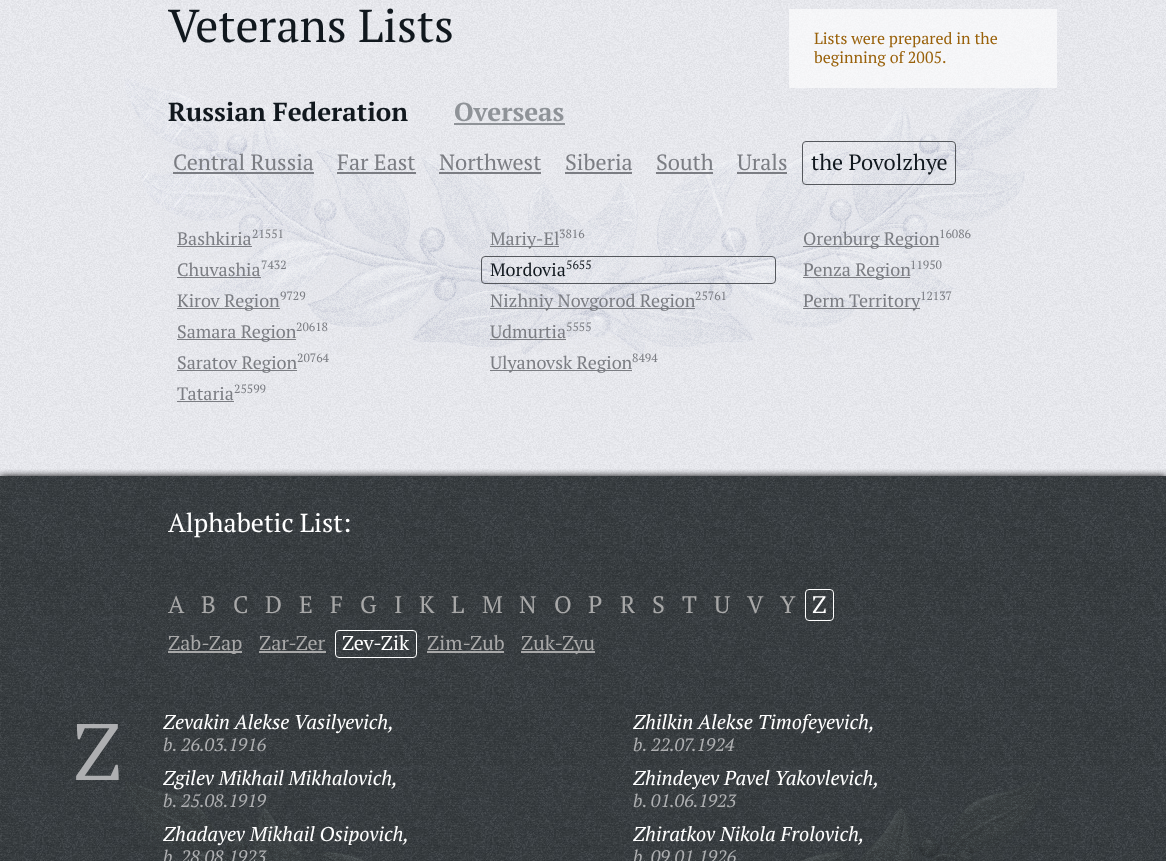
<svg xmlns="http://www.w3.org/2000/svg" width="1166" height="861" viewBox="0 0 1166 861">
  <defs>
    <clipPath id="clip1"><path d="M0 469h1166v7H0z"/></clipPath>
  </defs>
  <rect width="100%" height="100%" fill="#fff"/>
  <image x="0" y="476" width="1166" height="385" href="img/1.png"/>
  <image x="0" y="0" width="1166" height="476" href="img/2.png"/>
  <path d="M789 9h268v79H789z" fill="#ffffff99"/>
  <path d="M454 123h111v2H454z" fill="#8f9398"/>
  <path d="M173 172h141v2H173z" fill="#7b7d83"/>
  <path d="M337 172h79v2H337z" fill="#7b7d83"/>
  <path d="M439 172h102v2H439z" fill="#7b7d83"/>
  <path d="M565 172h67v2H565z" fill="#7b7d83"/>
  <path d="M656 172h57v2H656z" fill="#7b7d83"/>
  <path d="M737 172h50v2H737z" fill="#7b7d83"/>
  <rect x="802.5" y="141.5" width="153" height="43" rx="3.5" fill="none" stroke="#54575c"/>
  <path d="M177 246h75v1H177z" fill="#7b7d83"/>
  <path d="M177 277h84v1H177z" fill="#7b7d83"/>
  <path d="M177 308h103v1H177z" fill="#7b7d83"/>
  <path d="M490 246h69v1H490z" fill="#7b7d83"/>
  <rect x="481.5" y="256.5" width="294" height="27" rx="3.5" fill="none" stroke="#54575c"/>
  <path d="M490 308h205v1H490z" fill="#7b7d83"/>
  <path d="M803 246h136v1H803z" fill="#7b7d83"/>
  <path d="M803 277h107v1H803z" fill="#7b7d83"/>
  <path d="M803 308h117v1H803z" fill="#7b7d83"/>
  <path d="M177 339h119v1H177z" fill="#7b7d83"/>
  <path d="M177 370h120v1H177z" fill="#7b7d83"/>
  <path d="M177 401h57v1H177z" fill="#7b7d83"/>
  <path d="M490 339h76v1H490z" fill="#7b7d83"/>
  <path d="M490 370h142v1H490z" fill="#7b7d83"/>
  <g clip-path="url(#clip1)">
    <path d="M0 476h1166v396H0z" fill="#000" filter="blur(3.5px)"/>
  </g>
  <image x="125" y="767" width="916" height="94" href="img/3.png"/>
  <rect x="805.5" y="589.5" width="28" height="31" rx="3.5" fill="none" stroke="#fff"/>
  <path d="M168 651h74v2H168z" fill="#a8a8a8"/>
  <path d="M259 651h67v2H259z" fill="#a8a8a8"/>
  <rect x="335.5" y="630.5" width="81" height="27" rx="3.5" fill="none" stroke="#fff"/>
  <path d="M427 651h77v2H427z" fill="#a8a8a8"/>
  <path d="M521 651h74v2H521z" fill="#a8a8a8"/>
  <text x="168" y="42" font-family="PT Serif" font-size="46" fill="#11181e">Veterans Lists</text>
  <g font-family="PT Serif" font-size="16" fill="#99610a">
    <text x="814" y="44">Lists were prepared in the</text>
    <text x="814" y="63">beginning of 2005.</text>
  </g>
  <text x="168" y="121" font-family="PT Serif" font-size="26" font-weight="bold" fill="#11181e">Russian Federation</text>
  <text x="454" y="121" font-family="PT Serif" font-size="26" font-weight="bold" fill="#8f9398">Overseas</text>
  <g font-family="PT Serif" font-size="22" fill="#7b7d83">
    <text x="173" y="170">Central Russia</text>
    <text x="337" y="170">Far East</text>
    <text x="439" y="170">Northwest</text>
    <text x="565" y="170">Siberia</text>
    <text x="656" y="170">South</text>
    <text x="737" y="170">Urals</text>
  </g>
  <text x="811" y="170" font-family="PT Serif" font-size="22" fill="#11181e">the Povolzhye</text>
  <text x="177" y="245" font-family="PT Serif" font-size="18" fill="#7b7d83">Bashkiria</text>
  <text x="252" y="238" font-family="PT Serif" font-size="12" fill="#7b7d83">21551</text>
  <text x="177" y="276" font-family="PT Serif" font-size="18" fill="#7b7d83">Chuvashia</text>
  <text x="261" y="269" font-family="PT Serif" font-size="12" fill="#7b7d83">7432</text>
  <text x="177" y="307" font-family="PT Serif" font-size="18" fill="#7b7d83">Kirov Region</text>
  <text x="280" y="300" font-family="PT Serif" font-size="12" fill="#7b7d83">9729</text>
  <text x="490" y="245" font-family="PT Serif" font-size="18" fill="#7b7d83">Mariy-El</text>
  <text x="559" y="238" font-family="PT Serif" font-size="12" fill="#7b7d83">3816</text>
  <text x="490" y="276" font-family="PT Serif" font-size="18" fill="#11181e">Mordovia</text>
  <text x="566" y="269" font-family="PT Serif" font-size="12" fill="#11181e">5655</text>
  <text x="490" y="307" font-family="PT Serif" font-size="18" fill="#7b7d83">Nizhniy Novgorod Region</text>
  <text x="695" y="300" font-family="PT Serif" font-size="12" fill="#7b7d83">25761</text>
  <text x="803" y="245" font-family="PT Serif" font-size="18" fill="#7b7d83">Orenburg Region</text>
  <text x="939" y="238" font-family="PT Serif" font-size="12" fill="#7b7d83">16086</text>
  <text x="803" y="276" font-family="PT Serif" font-size="18" fill="#7b7d83">Penza Region</text>
  <text x="910" y="269" font-family="PT Serif" font-size="12" fill="#7b7d83">11950</text>
  <text x="803" y="307" font-family="PT Serif" font-size="18" fill="#7b7d83">Perm Territory</text>
  <text x="920" y="300" font-family="PT Serif" font-size="12" fill="#7b7d83">12137</text>
  <text x="177" y="338" font-family="PT Serif" font-size="18" fill="#7b7d83">Samara Region</text>
  <text x="296" y="331" font-family="PT Serif" font-size="12" fill="#7b7d83">20618</text>
  <text x="177" y="369" font-family="PT Serif" font-size="18" fill="#7b7d83">Saratov Region</text>
  <text x="297" y="362" font-family="PT Serif" font-size="12" fill="#7b7d83">20764</text>
  <text x="177" y="400" font-family="PT Serif" font-size="18" fill="#7b7d83">Tataria</text>
  <text x="234" y="393" font-family="PT Serif" font-size="12" fill="#7b7d83">25599</text>
  <text x="490" y="338" font-family="PT Serif" font-size="18" fill="#7b7d83">Udmurtia</text>
  <text x="566" y="331" font-family="PT Serif" font-size="12" fill="#7b7d83">5555</text>
  <text x="490" y="369" font-family="PT Serif" font-size="18" fill="#7b7d83">Ulyanovsk Region</text>
  <text x="632" y="362" font-family="PT Serif" font-size="12" fill="#7b7d83">8494</text>
  <text x="168" y="532" font-family="PT Serif" font-size="26" fill="#fff">Alphabetic List:</text>
  <g font-family="PT Serif" font-size="24" fill="#a8a8a8">
    <text x="168" y="613">A</text>
    <text x="201" y="613">B</text>
    <text x="233" y="613">C</text>
    <text x="265" y="613">D</text>
    <text x="299" y="613">E</text>
    <text x="330" y="613">F</text>
    <text x="360" y="613">G</text>
    <text x="394" y="613">I</text>
    <text x="419" y="613">K</text>
    <text x="451" y="613">L</text>
    <text x="482" y="613">M</text>
    <text x="519" y="613">N</text>
    <text x="554" y="613">O</text>
    <text x="588" y="613">P</text>
    <text x="620" y="613">R</text>
    <text x="652" y="613">S</text>
    <text x="682" y="613">T</text>
    <text x="714" y="613">U</text>
    <text x="747" y="613">V</text>
    <text x="780" y="613">Y</text>
  </g>
  <text x="812" y="613" font-family="PT Serif" font-size="24" fill="#fff">Z</text>
  <g font-family="PT Serif" font-size="20" fill="#a8a8a8">
    <text x="168" y="650">Zab-Zap</text>
    <text x="259" y="650">Zar-Zer</text>
  </g>
  <text x="342" y="650" font-family="PT Serif" font-size="20" fill="#fff">Zev-Zik</text>
  <g font-family="PT Serif" font-size="20" fill="#a8a8a8">
    <text x="427" y="650">Zim-Zub</text>
    <text x="521" y="650">Zuk-Zyu</text>
  </g>
  <text x="73" y="780" font-family="PT Serif" font-size="80" fill="#aeafb1">Z</text>
  <text x="163" y="729" font-family="PT Serif" font-size="20" font-style="italic" fill="#fff">Zevakin Alekse Vasilyevich,</text>
  <text x="163" y="751" font-family="PT Serif" font-size="18" font-style="italic" fill="#aeafb1">b. 26.03.1916</text>
  <text x="163" y="785" font-family="PT Serif" font-size="20" font-style="italic" fill="#fff">Zgilev Mikhail Mikhalovich,</text>
  <text x="163" y="807" font-family="PT Serif" font-size="18" font-style="italic" fill="#aeafb1">b. 25.08.1919</text>
  <text x="163" y="841" font-family="PT Serif" font-size="20" font-style="italic" fill="#fff">Zhadayev Mikhail Osipovich,</text>
  <text x="163" y="863" font-family="PT Serif" font-size="18" font-style="italic" fill="#aeafb1">b. 28.08.1923</text>
  <text x="633" y="729" font-family="PT Serif" font-size="20" font-style="italic" fill="#fff">Zhilkin Alekse Timofeyevich,</text>
  <text x="633" y="751" font-family="PT Serif" font-size="18" font-style="italic" fill="#aeafb1">b. 22.07.1924</text>
  <text x="633" y="785" font-family="PT Serif" font-size="20" font-style="italic" fill="#fff">Zhindeyev Pavel Yakovlevich,</text>
  <text x="633" y="807" font-family="PT Serif" font-size="18" font-style="italic" fill="#aeafb1">b. 01.06.1923</text>
  <text x="633" y="841" font-family="PT Serif" font-size="20" font-style="italic" fill="#fff">Zhiratkov Nikola Frolovich,</text>
  <text x="633" y="863" font-family="PT Serif" font-size="18" font-style="italic" fill="#aeafb1">b. 09.01.1926</text>
</svg>
